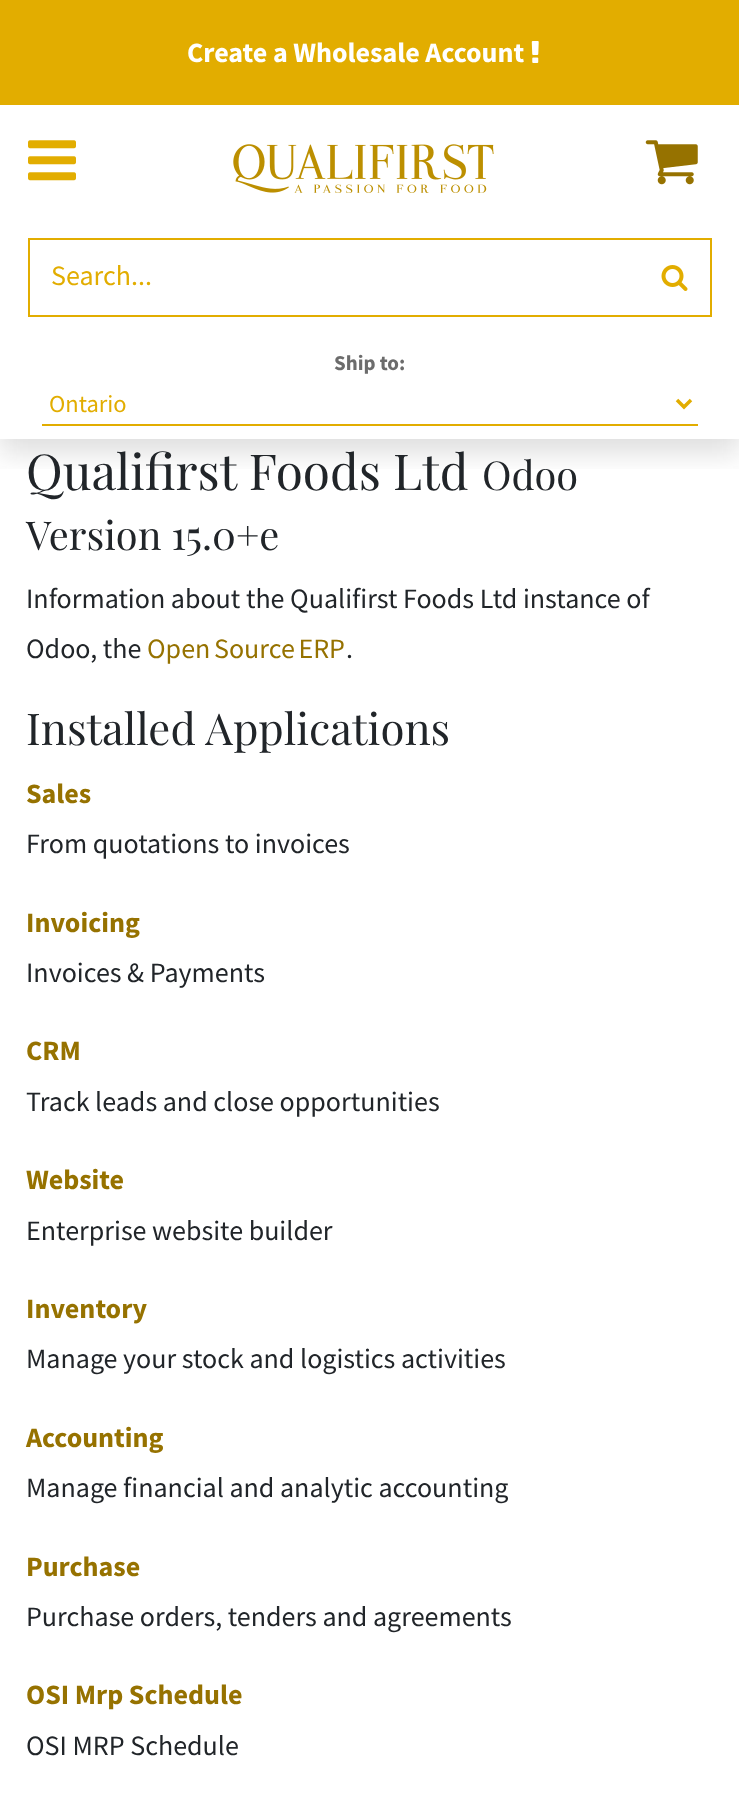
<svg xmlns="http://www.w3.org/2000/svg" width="739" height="1817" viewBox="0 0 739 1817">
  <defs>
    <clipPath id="clip1"><path d="M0 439h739v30H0z"/></clipPath>
  </defs>
  <rect width="100%" height="100%" fill="#fff"/>
  <g clip-path="url(#clip1)">
    <path d="M0 14h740v439H0z" fill="#22222226" filter="blur(14px)"/>
  </g>
  <path d="M0 0h739v105H0z" fill="#e2ad00"/>
  <image x="531" y="41" width="8" height="22" href="img/1.png"/>
  <image x="28" y="140" width="48" height="41" href="img/2.png"/>
  <image x="233" y="144" width="261" height="49" href="img/3.png"/>
  <image x="645" y="140" width="53" height="45" href="img/4.png"/>
  <path d="M29 239h682v77H29z" fill="none" stroke="#e2ad00" stroke-width="2"/>
  <image x="661" y="265" width="27" height="26" href="img/5.png"/>
  <path d="M42 424h656v2H42z" fill="#e2ad00"/>
  <path d="M677 400L684 407L691 400" fill="none" stroke="#e2ad00" stroke-width="3.5"/>
  <text x="187" y="62" font-family="Source Sans Pro" font-size="28" font-weight="bold" fill="#fff">Create a Wholesale Account</text>
  <text x="51" y="285" font-family="Source Sans Pro" font-size="28" fill="#e2ad00">Search...</text>
  <text x="334" y="370" font-family="Source Sans Pro" font-size="21" font-weight="bold" fill="#6c6c6c">Ship to:</text>
  <text x="49" y="412" font-family="Source Sans Pro" font-size="24.5" fill="#e2ad00">Ontario</text>
  <text x="26" y="490" font-family="Playfair Display" font-size="49.5" fill="#212529">Qualifirst Foods Ltd</text>
  <g font-family="Playfair Display" font-size="39.75" fill="#212529">
    <text x="482" y="490">Odoo</text>
    <text x="26" y="550">Version 15.0+e</text>
  </g>
  <g font-family="Source Sans Pro" font-size="28" fill="#212529">
    <text x="26" y="608">Information about the Qualifirst Foods Ltd instance of</text>
    <text x="26" y="658">Odoo, the</text>
  </g>
  <text x="147" y="658" word-spacing="-2" font-family="Source Sans Pro" font-size="28" fill="#967200">Open Source ERP</text>
  <text x="346" y="658" font-family="Source Sans Pro" font-size="28" fill="#212529">.</text>
  <text x="26" y="745" font-family="Playfair Display" font-size="43.75" fill="#212529">Installed Applications</text>
  <text x="26" y="803" font-family="Source Sans Pro" font-size="28" font-weight="bold" fill="#967200">Sales</text>
  <text x="26" y="853" font-family="Source Sans Pro" font-size="28" fill="#212529">From quotations to invoices</text>
  <text x="26" y="932" font-family="Source Sans Pro" font-size="28" font-weight="bold" fill="#967200">Invoicing</text>
  <text x="26" y="982" font-family="Source Sans Pro" font-size="28" fill="#212529">Invoices &amp; Payments</text>
  <text x="26" y="1060" font-family="Source Sans Pro" font-size="28" font-weight="bold" fill="#967200">CRM</text>
  <text x="26" y="1111" font-family="Source Sans Pro" font-size="28" fill="#212529">Track leads and close opportunities</text>
  <text x="26" y="1189" font-family="Source Sans Pro" font-size="28" font-weight="bold" fill="#967200">Website</text>
  <text x="26" y="1240" font-family="Source Sans Pro" font-size="28" fill="#212529">Enterprise website builder</text>
  <text x="26" y="1318" font-family="Source Sans Pro" font-size="28" font-weight="bold" fill="#967200">Inventory</text>
  <text x="26" y="1368" font-family="Source Sans Pro" font-size="28" fill="#212529">Manage your stock and logistics activities</text>
  <text x="26" y="1447" font-family="Source Sans Pro" font-size="28" font-weight="bold" fill="#967200">Accounting</text>
  <text x="26" y="1497" font-family="Source Sans Pro" font-size="28" fill="#212529">Manage financial and analytic accounting</text>
  <text x="26" y="1576" font-family="Source Sans Pro" font-size="28" font-weight="bold" fill="#967200">Purchase</text>
  <text x="26" y="1626" font-family="Source Sans Pro" font-size="28" fill="#212529">Purchase orders, tenders and agreements</text>
  <text x="26" y="1704" font-family="Source Sans Pro" font-size="28" font-weight="bold" fill="#967200">OSI Mrp Schedule</text>
  <text x="26" y="1755" font-family="Source Sans Pro" font-size="28" fill="#212529">OSI MRP Schedule</text>
</svg>
